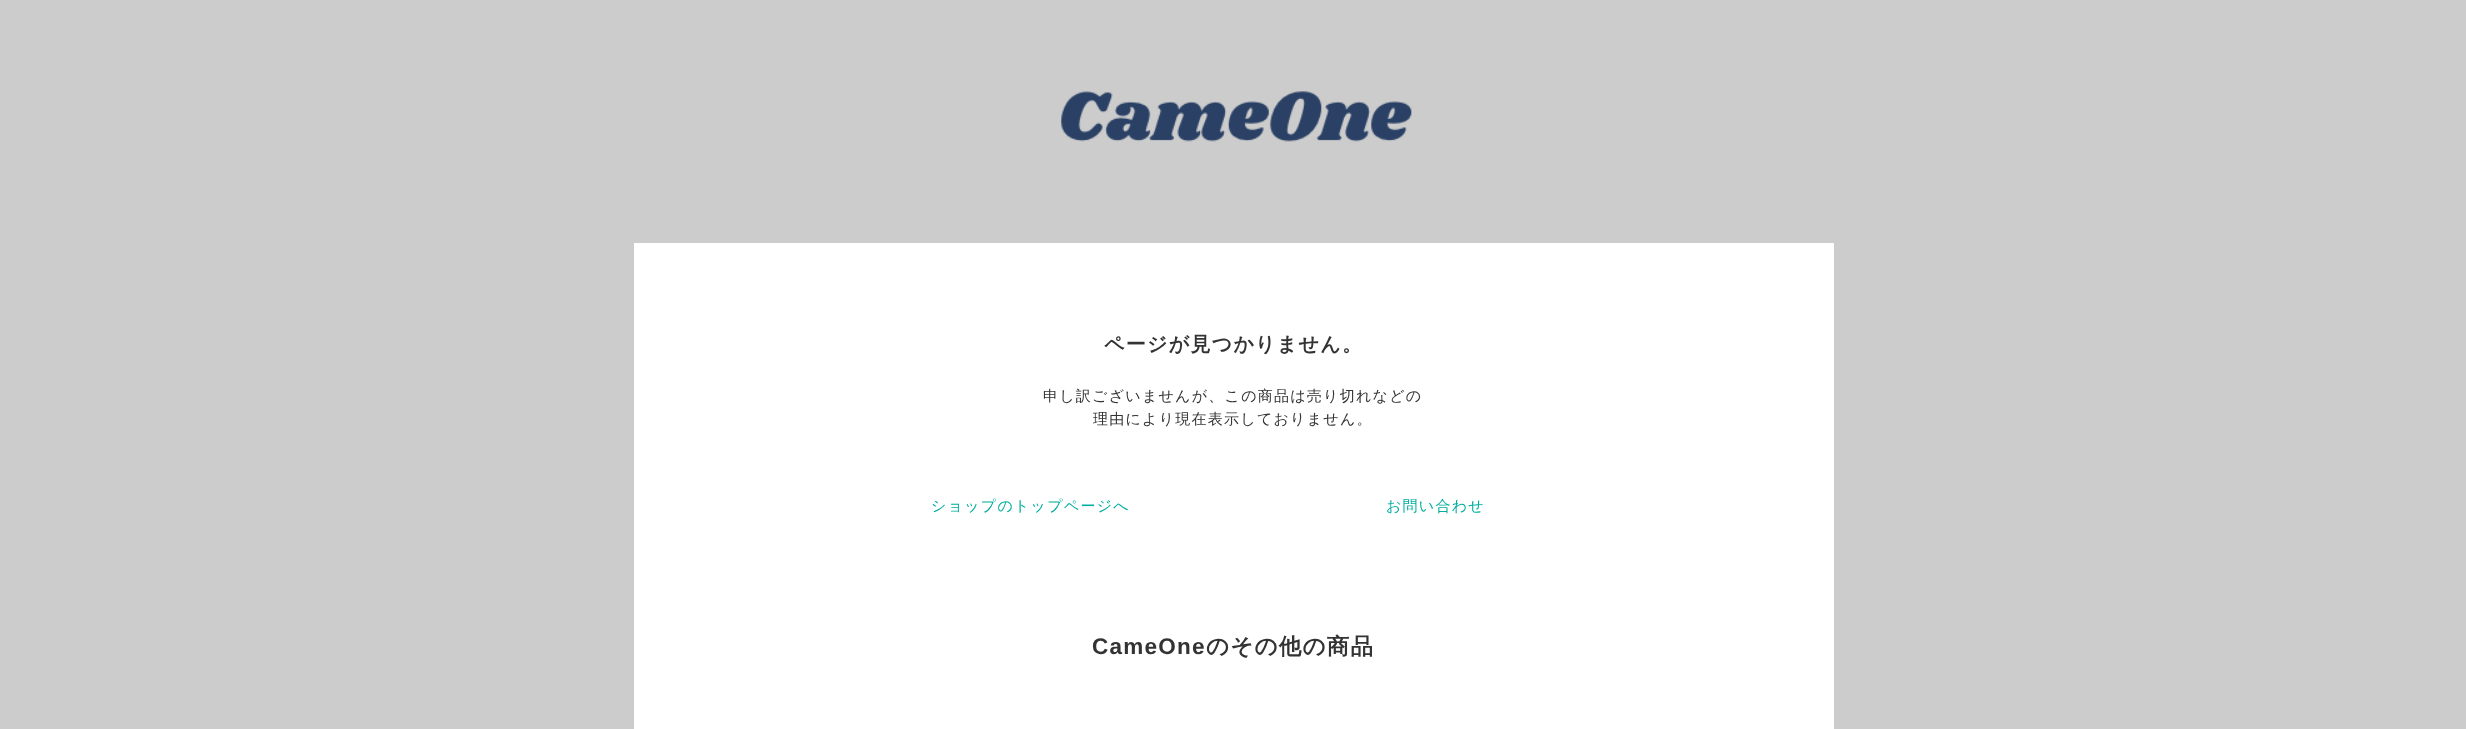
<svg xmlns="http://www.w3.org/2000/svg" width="2466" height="729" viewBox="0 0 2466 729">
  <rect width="100%" height="100%" fill="#ccc"/>
  <image x="1060" y="91" width="352" height="51" href="img/1.png"/>
  <path d="M634 243h1200v486H634z" fill="#fff"/>
  <text x="1104" y="351" font-family="WenQuanYi Zen Hei" font-size="20" font-weight="bold" letter-spacing="1.25" fill="#333">ページが見つかりません。</text>
  <g font-family="WenQuanYi Zen Hei" font-size="15" font-weight="500" letter-spacing="1.25" fill="#333">
    <text x="1043" y="401">申し訳ございませんが、この商品は売り切れなどの</text>
    <text x="1093" y="424">理由により現在表示しておりません。</text>
  </g>
  <g font-family="WenQuanYi Zen Hei" font-size="15" font-weight="500" letter-spacing="1.25" fill="#00ae9f">
    <text x="931" y="511">ショップのトップページへ</text>
    <text x="1386" y="511">お問い合わせ</text>
  </g>
  <text x="1092" y="654" font-family="Liberation Sans" font-size="22.5" font-weight="bold" letter-spacing="1.25" fill="#333">CameOne</text>
  <text x="1206" y="654" font-family="WenQuanYi Zen Hei" font-size="22.5" font-weight="bold" letter-spacing="1.25" fill="#333">のその他の商品</text>
</svg>
